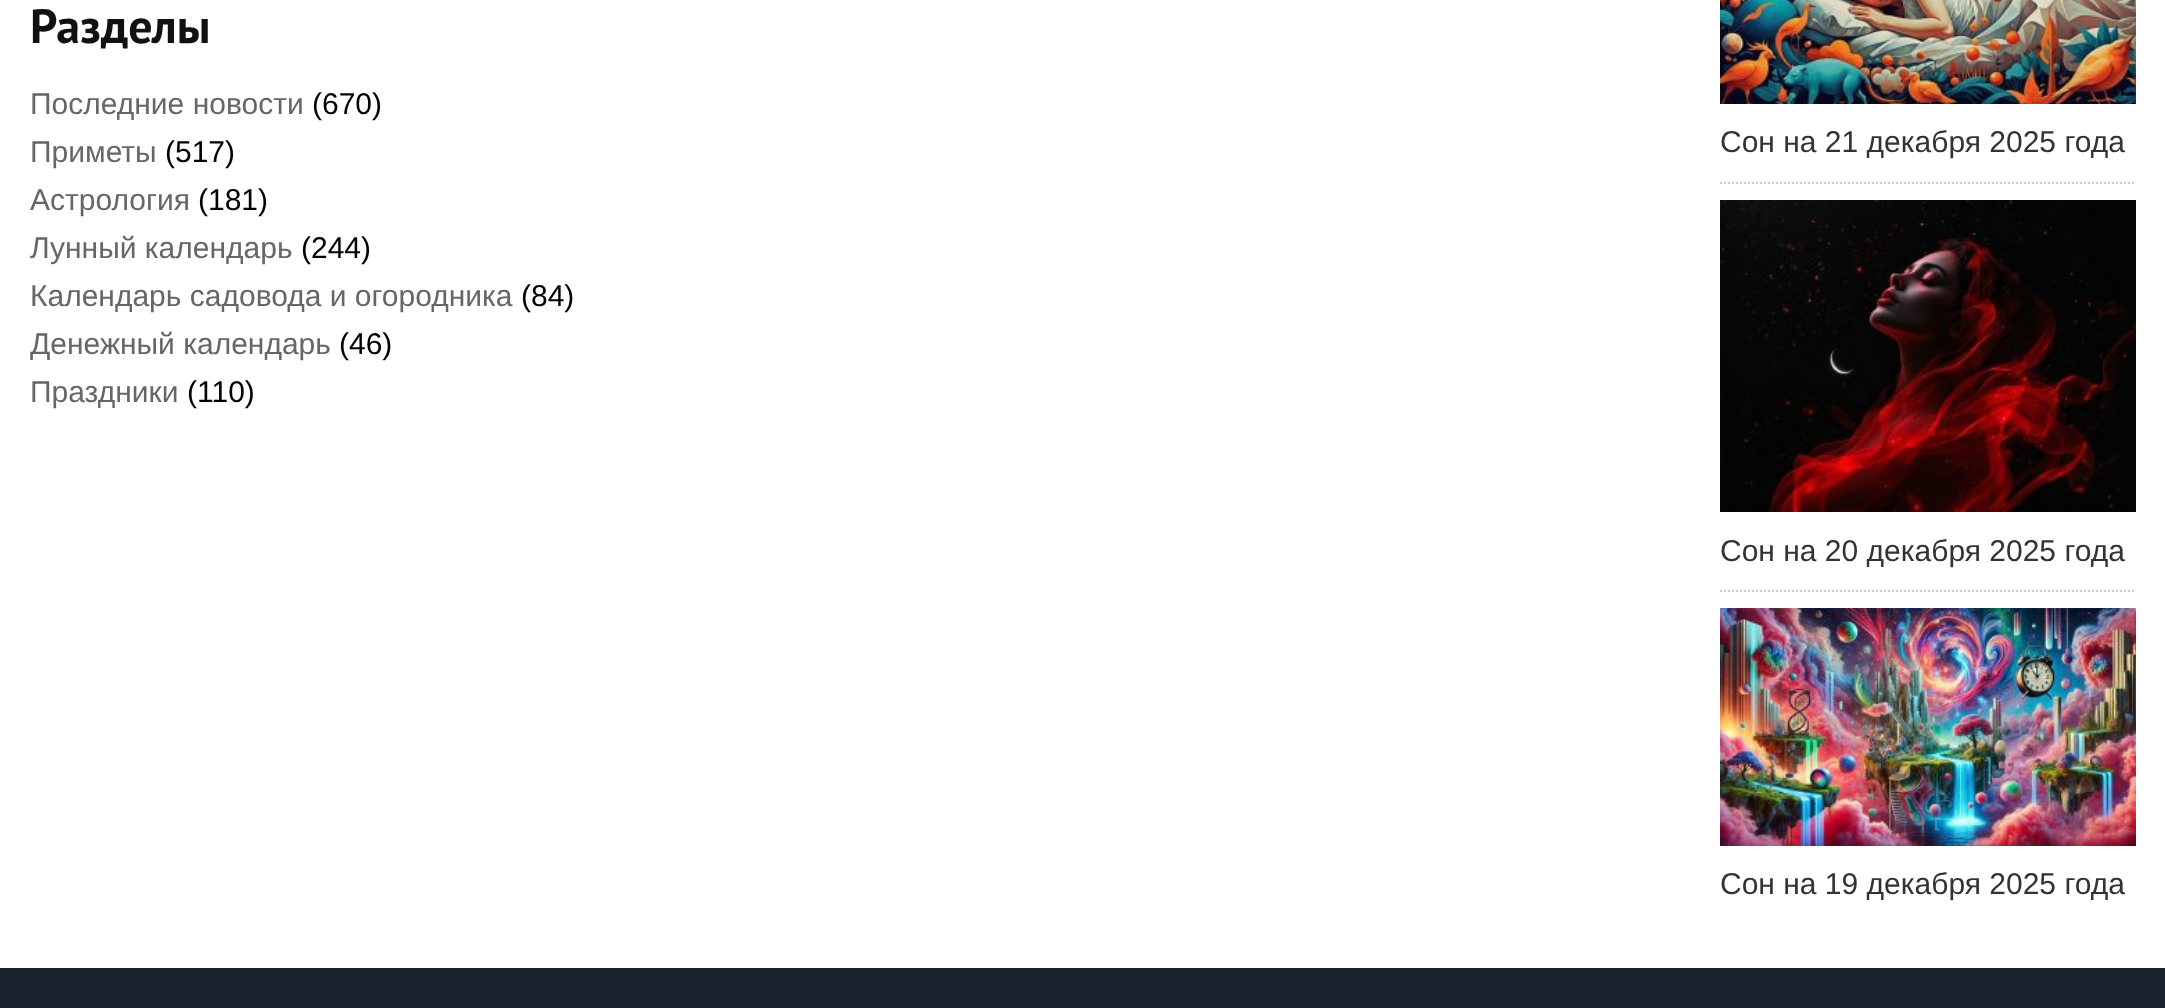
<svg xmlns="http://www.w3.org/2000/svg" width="2165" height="1008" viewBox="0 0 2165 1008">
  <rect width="100%" height="100%" fill="#19222f"/>
  <path d="M0 0h2165v968H0z" fill="#fff"/>
  <path d="M1720 183H2136" fill="none" stroke="#ccc" stroke-width="2" stroke-dasharray="2 2"/>
  <image x="1720" y="0" width="416" height="104" href="img/1.png"/>
  <path d="M1720 591H2136" fill="none" stroke="#ccc" stroke-width="2" stroke-dasharray="2 2"/>
  <image x="1720" y="200" width="416" height="312" href="img/2.png"/>
  <image x="1720" y="608" width="416" height="238" href="img/3.png"/>
  <path d="M0 968h2165v2H0z" fill="#222"/>
  <text x="30" y="43" font-family="PT Sans" font-size="48" font-weight="bold" fill="#111">Разделы</text>
  <text x="30" y="114" font-family="Liberation Sans" font-size="30" fill="#666">Последние новости</text>
  <text x="312" y="114" font-family="Liberation Sans" font-size="30" fill="#000">(670)</text>
  <text x="30" y="162" font-family="Liberation Sans" font-size="30" fill="#666">Приметы</text>
  <text x="165" y="162" font-family="Liberation Sans" font-size="30" fill="#000">(517)</text>
  <text x="30" y="210" font-family="Liberation Sans" font-size="30" fill="#666">Астрология</text>
  <text x="198" y="210" font-family="Liberation Sans" font-size="30" fill="#000">(181)</text>
  <text x="30" y="258" font-family="Liberation Sans" font-size="30" fill="#666">Лунный календарь</text>
  <text x="301" y="258" font-family="Liberation Sans" font-size="30" fill="#000">(244)</text>
  <text x="30" y="306" font-family="Liberation Sans" font-size="30" fill="#666">Календарь садовода и огородника</text>
  <text x="521" y="306" font-family="Liberation Sans" font-size="30" fill="#000">(84)</text>
  <text x="30" y="354" font-family="Liberation Sans" font-size="30" fill="#666">Денежный календарь</text>
  <text x="339" y="354" font-family="Liberation Sans" font-size="30" fill="#000">(46)</text>
  <text x="30" y="402" font-family="Liberation Sans" font-size="30" fill="#666">Праздники</text>
  <text x="187" y="402" font-family="Liberation Sans" font-size="30" fill="#000">(110)</text>
  <g font-family="Liberation Sans" font-size="30" fill="#333">
    <text x="1720" y="152">Сон на 21 декабря 2025 года</text>
    <text x="1720" y="561">Сон на 20 декабря 2025 года</text>
    <text x="1720" y="894">Сон на 19 декабря 2025 года</text>
  </g>
</svg>
